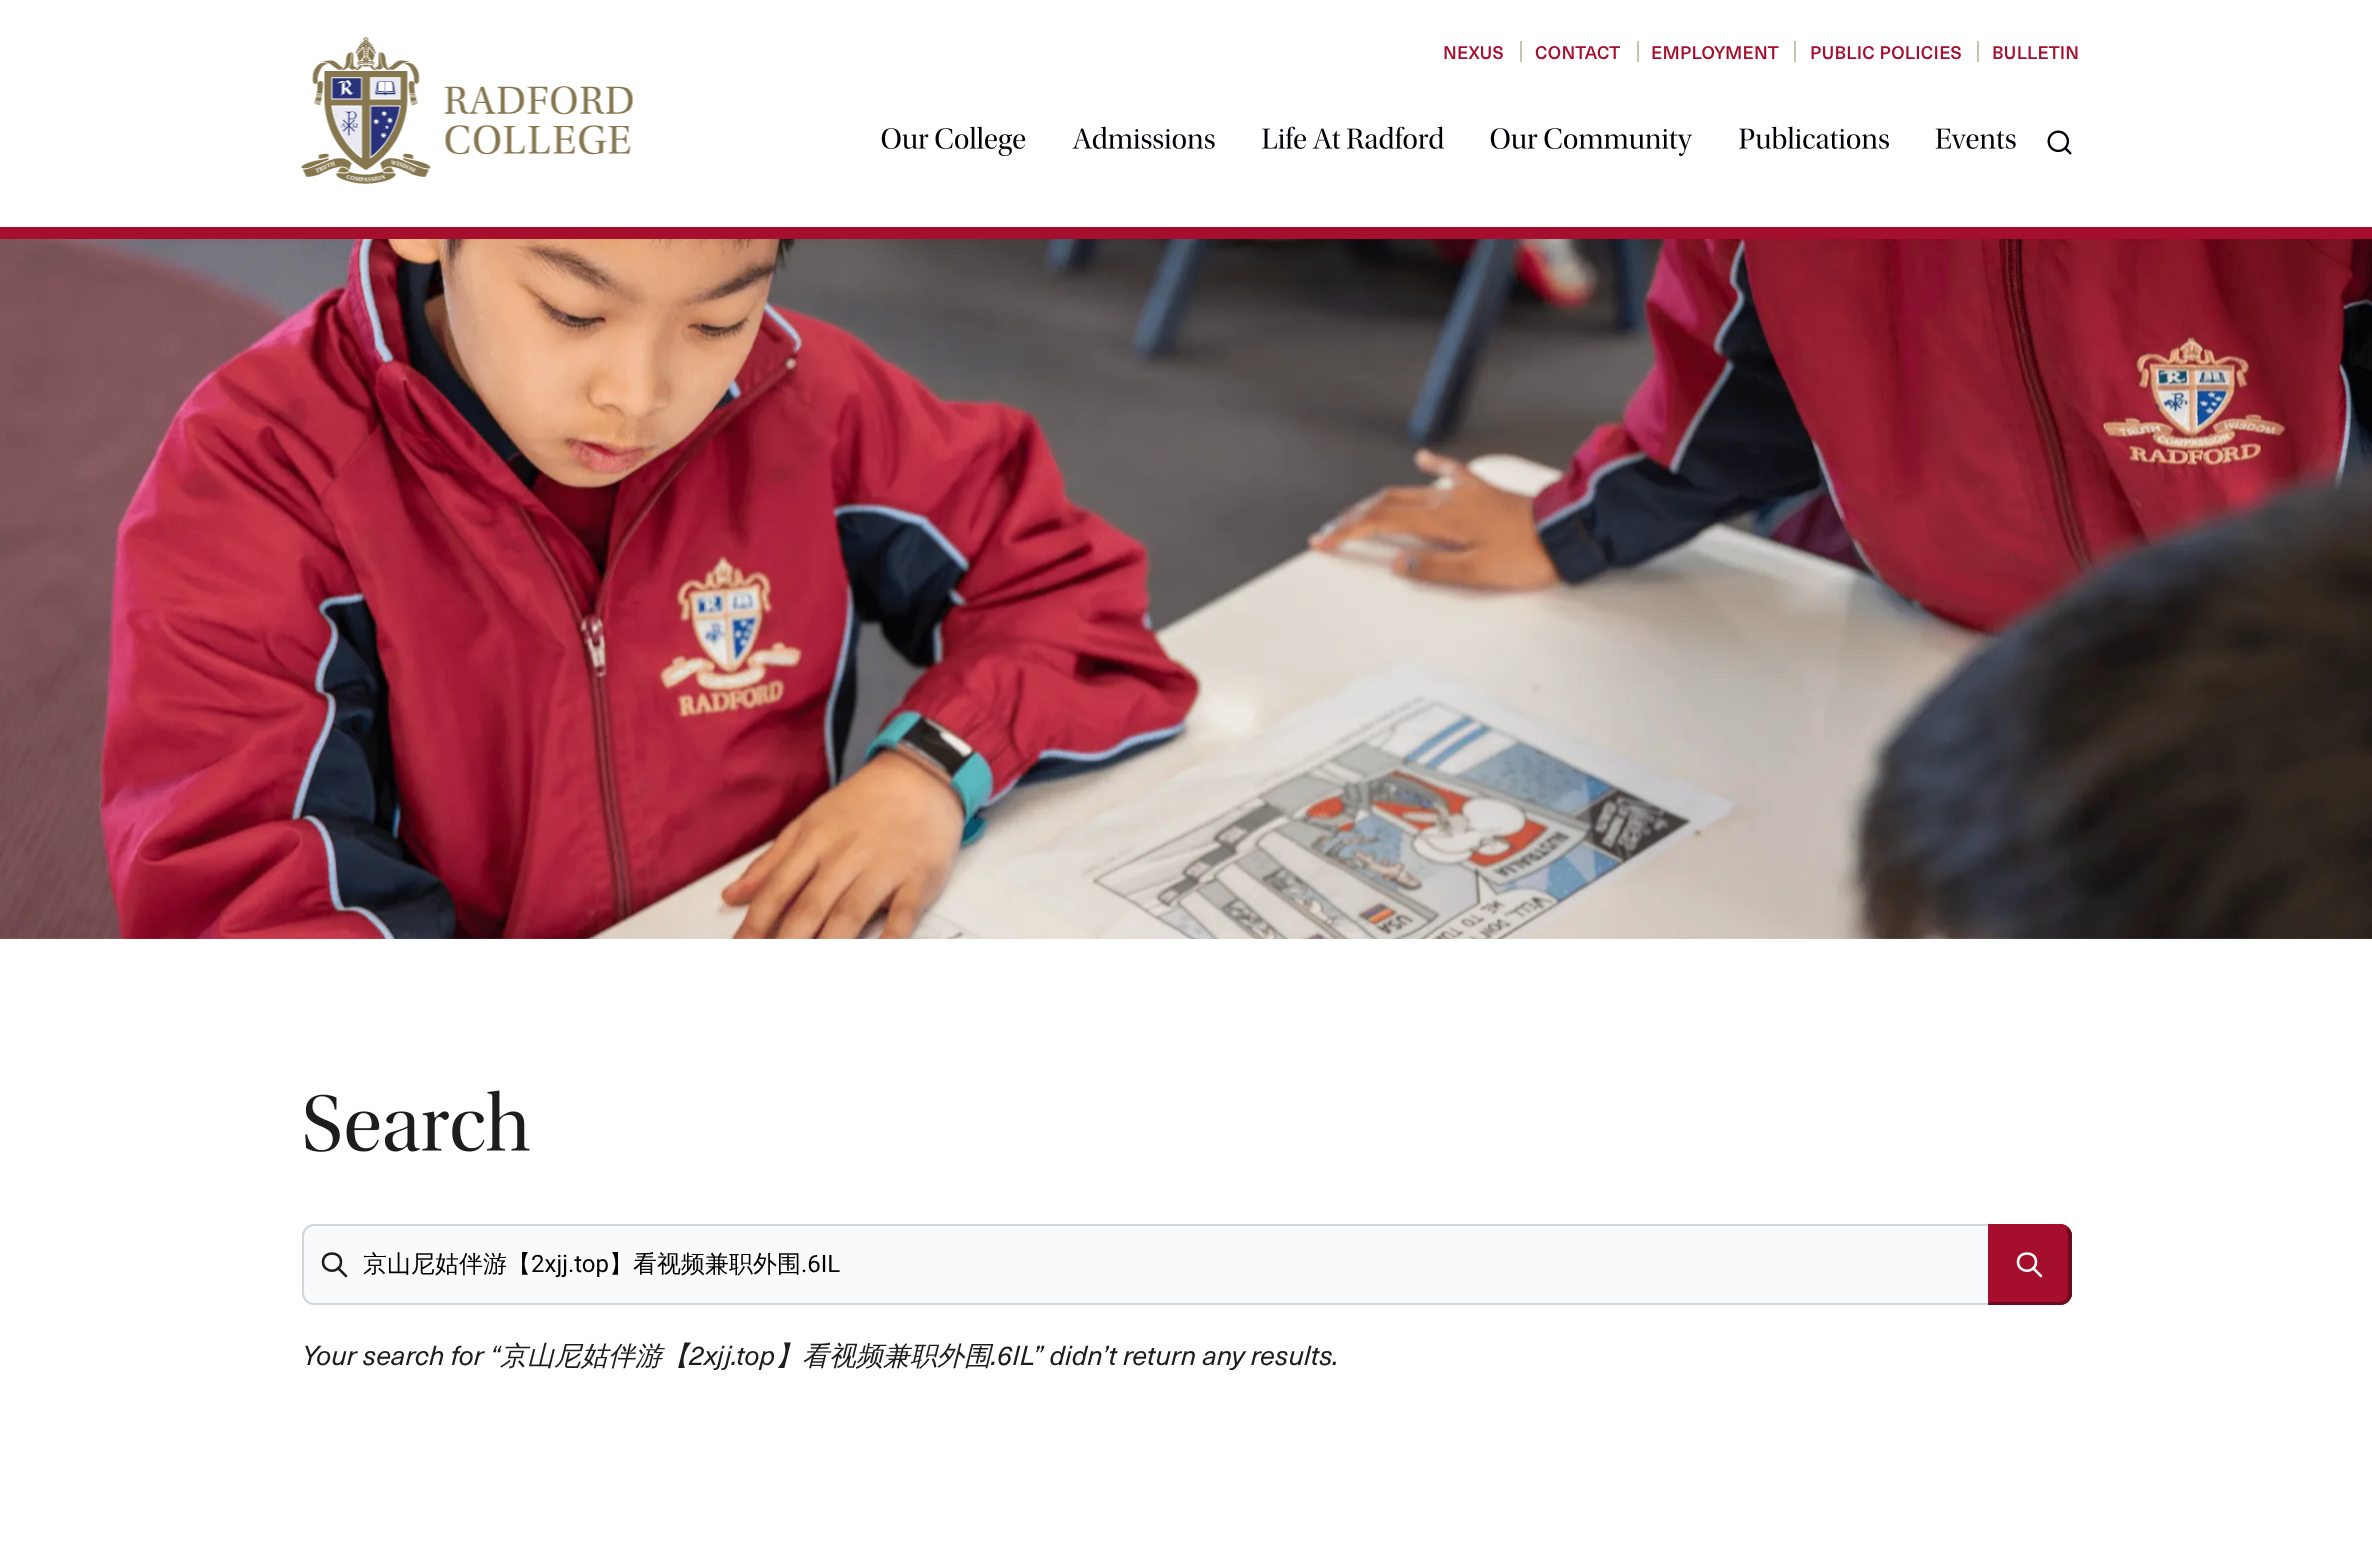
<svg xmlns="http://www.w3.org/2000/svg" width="2372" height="1541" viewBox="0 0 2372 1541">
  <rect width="100%" height="100%" fill="#fff"/>
  <path d="M0 227h2372v12H0z" fill="#a50f2d"/>
  <image x="301" y="37" width="333" height="147" href="img/1.png"/>
  <path d="M1520 41h2v21H1520z" fill="#c9c2b1"/>
  <path d="M1637 41h2v21H1637z" fill="#c9c2b1"/>
  <path d="M1794 41h2v21H1794z" fill="#c9c2b1"/>
  <path d="M1977 41h2v21H1977z" fill="#c9c2b1"/>
  <image x="881" y="126" width="145" height="30" href="img/2.png"/>
  <image x="1072" y="126" width="143" height="23" href="img/3.png"/>
  <image x="1262" y="126" width="182" height="23" href="img/4.png"/>
  <image x="1490" y="128" width="203" height="28" href="img/5.png"/>
  <image x="1739" y="126" width="150" height="23" href="img/6.png"/>
  <image x="1935" y="128" width="81" height="21" href="img/7.png"/>
  <image x="2047" y="130" width="25" height="25" href="img/8.png"/>
  <image x="0" y="239" width="2372" height="700" href="img/9.png"/>
  <image x="305" y="1090" width="225" height="62" href="img/10.png"/>
  <rect x="303" y="1225" width="1768" height="79" rx="11" fill="#f9fafb" stroke="#d1d5db" stroke-width="2"/>
  <path d="M346 1276L338 1268M341 1262C341 1273.5 323 1273.5 323 1262C323 1250.5 341 1250.5 341 1262Z" fill="none" stroke="#1d1d1b" stroke-width="2.5" stroke-linecap="round" stroke-linejoin="round"/>
  <path d="M1988 1224H2060C2066.5 1224 2072 1229.5 2072 1236V1293C2072 1299.5 2066.5 1305 2060 1305H1988Z" fill="#a50f2d"/>
  <path d="M1988 1224L1990 1227H2060C2062 1227 2064 1228 2066 1230L2068 1227C2066 1225 2063 1224 2060 1224Z" fill="#a50f2d"/>
  <path d="M2072 1296C2071 1298 2070 1300 2068 1302L2066 1299C2067 1298 2068 1295 2068 1293V1236C2068 1234 2067 1231 2066 1230L2068 1227C2070 1229 2071 1231 2072 1233Z" fill="#6e0a1e"/>
  <path d="M1988 1305H2060C2063 1305 2066 1304 2068 1302L2066 1299C2064 1301 2062 1302 2060 1302H1990Z" fill="#6e0a1e"/>
  <path d="M1990 1227L1988 1224V1304L1990 1302Z" fill="#a50f2d"/>
  <path d="M2041 1276L2033 1268M2036 1262C2036 1273.5 2018 1273.5 2018 1262C2018 1250.5 2036 1250.5 2036 1262Z" fill="none" stroke="#fff" stroke-width="2.5" stroke-linecap="round" stroke-linejoin="round"/>
  <g font-family="'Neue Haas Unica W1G'" font-size="18" font-weight="500" letter-spacing="0.25" fill="#a50f2d">
    <text x="1443" y="59">NEXUS</text>
    <text x="1535" y="59">CONTACT</text>
    <text x="1651" y="59">EMPLOYMENT</text>
    <text x="1810" y="59">PUBLIC POLICIES</text>
    <text x="1992" y="59">BULLETIN</text>
  </g>
  <text x="363" y="1272" font-family="WenQuanYi Zen Hei" font-size="24" font-weight="500" fill="#000">京山尼姑伴游【</text>
  <text x="531" y="1272" font-family="Roboto" font-size="24" fill="#000">2xjj.top</text>
  <text x="609" y="1272" font-family="WenQuanYi Zen Hei" font-size="24" font-weight="500" fill="#000">】看视频兼职外围</text>
  <text x="801" y="1272" font-family="Roboto" font-size="24" fill="#000">.6IL</text>
  <text x="302" y="1365" font-family="'Neue Haas Unica W1G'" font-size="27" font-style="italic" fill="#1d1d1b">Your search for “</text>
  <text x="500" y="1365" font-family="WenQuanYi Zen Hei" font-size="27" font-weight="500" font-style="italic" fill="#1d1d1b">京山尼姑伴游【</text>
  <text x="689" y="1365" font-family="'Neue Haas Unica W1G'" font-size="27" font-style="italic" fill="#1d1d1b">2xjj.top</text>
  <text x="775" y="1365" font-family="WenQuanYi Zen Hei" font-size="27" font-weight="500" font-style="italic" fill="#1d1d1b">】看视频兼职外围</text>
  <text x="991" y="1365" font-family="'Neue Haas Unica W1G'" font-size="27" font-style="italic" fill="#1d1d1b">.6IL” didn’t return any results.</text>
</svg>
